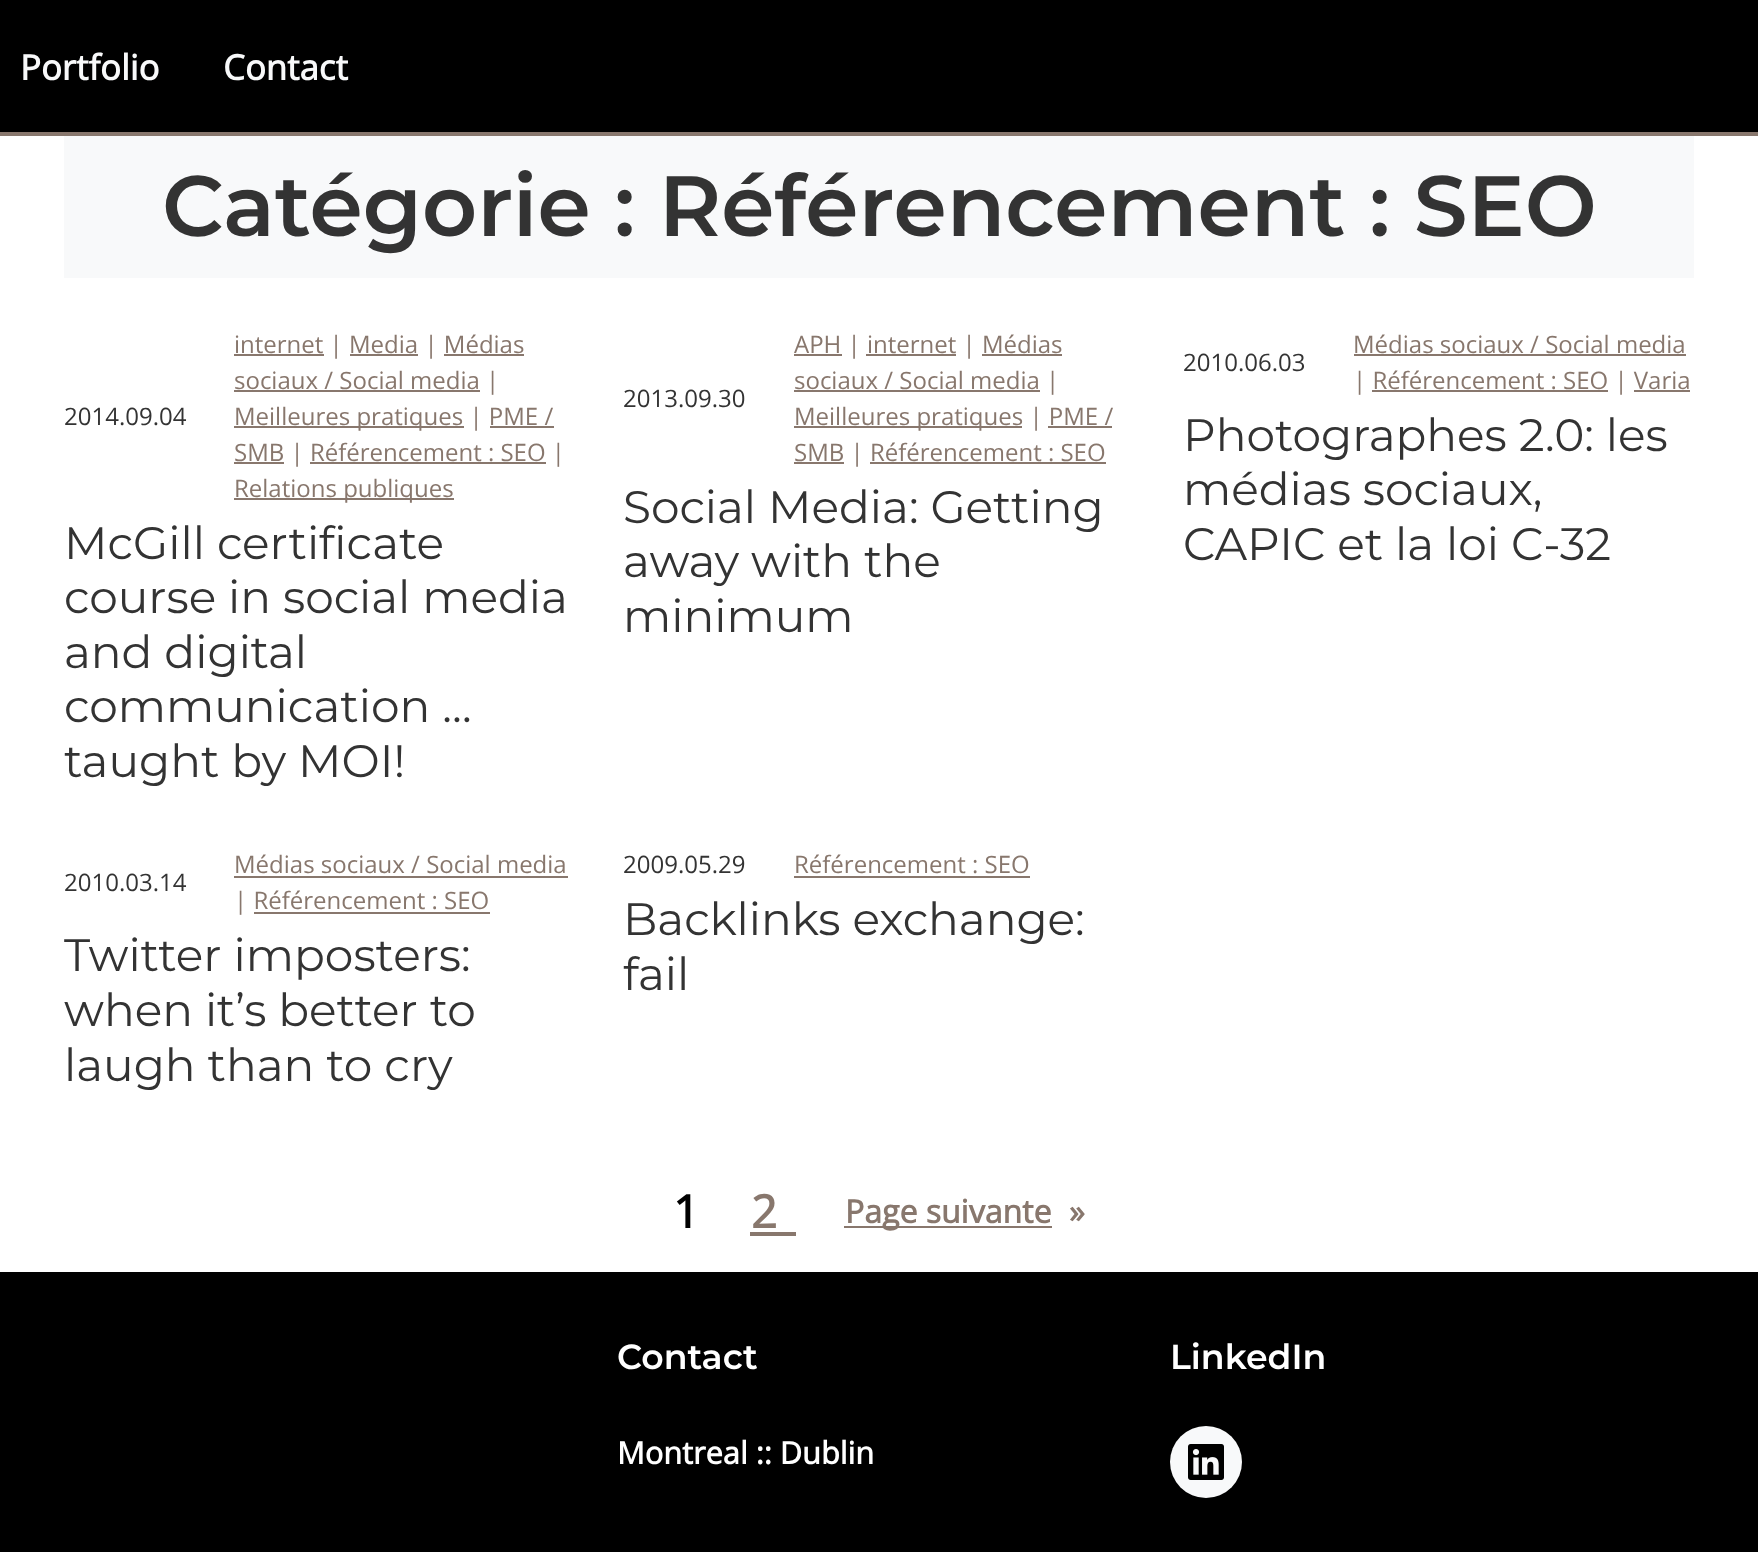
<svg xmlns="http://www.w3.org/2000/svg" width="1758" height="1552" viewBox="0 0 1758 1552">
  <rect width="100%" height="100%" fill="#fff"/>
  <path d="M0 0h1758v132H0z" fill="#000"/>
  <path d="M0 132h1758v4H0z" fill="#88776d"/>
  <path d="M64 136h1630v142H64z" fill="#f8f9fa"/>
  <path d="M234 354h90v2H234z" fill="#88776d"/>
  <path d="M350 354h68v2H350z" fill="#88776d"/>
  <path d="M444 354h80v2H444z" fill="#88776d"/>
  <path d="M234 390h246v2H234z" fill="#88776d"/>
  <path d="M234 426h230v2H234z" fill="#88776d"/>
  <path d="M490 426h64v2H490z" fill="#88776d"/>
  <path d="M234 462h50v2H234z" fill="#88776d"/>
  <path d="M310 462h236v2H310z" fill="#88776d"/>
  <path d="M234 498h220v2H234z" fill="#88776d"/>
  <path d="M794 354h48v2H794z" fill="#88776d"/>
  <path d="M866 354h90v2H866z" fill="#88776d"/>
  <path d="M982 354h80v2H982z" fill="#88776d"/>
  <path d="M794 390h246v2H794z" fill="#88776d"/>
  <path d="M794 426h228v2H794z" fill="#88776d"/>
  <path d="M1048 426h64v2H1048z" fill="#88776d"/>
  <path d="M794 462h50v2H794z" fill="#88776d"/>
  <path d="M870 462h236v2H870z" fill="#88776d"/>
  <path d="M1354 354h332v2H1354z" fill="#88776d"/>
  <path d="M1372 390h236v2H1372z" fill="#88776d"/>
  <path d="M1634 390h56v2H1634z" fill="#88776d"/>
  <path d="M234 876h334v2H234z" fill="#88776d"/>
  <path d="M254 912h236v2H254z" fill="#88776d"/>
  <path d="M794 876h236v2H794z" fill="#88776d"/>
  <path d="M750 1232h46v4H750z" fill="#88776d"/>
  <path d="M844 1226h208v2H844z" fill="#88776d"/>
  <path d="M0 1272h1758v280H0z" fill="#000"/>
  <circle cx="1206" cy="1462" r="36" fill="#f8f9fa"/>
  <image x="1188" y="1444" width="36" height="36" href="img/1.png"/>
  <g font-family="Open Sans" font-size="34.75" font-weight="bold" fill="#f8f9fa">
    <text x="20" y="80">Portfolio</text>
    <text x="223" y="80">Contact</text>
  </g>
  <text x="162" y="236" font-family="Montserrat" font-size="85.5" font-weight="600" fill="#333">Catégorie : Référencement : SEO</text>
  <text x="64" y="425" font-family="Open Sans" font-size="24" fill="#333">2014.09.04</text>
  <g font-family="Open Sans" font-size="24" fill="#88776d">
    <text x="234" y="353">internet | Media | Médias</text>
    <text x="234" y="389">sociaux / Social media |</text>
    <text x="234" y="425">Meilleures pratiques | PME /</text>
    <text x="234" y="461">SMB | Référencement : SEO |</text>
    <text x="234" y="497">Relations publiques</text>
  </g>
  <g font-family="Montserrat" font-size="45.5" fill="#333">
    <text x="64" y="559">McGill certificate</text>
    <text x="64" y="613">course in social media</text>
    <text x="64" y="668">and digital</text>
    <text x="64" y="722">communication …</text>
    <text x="64" y="777">taught by MOI!</text>
  </g>
  <text x="623" y="407" font-family="Open Sans" font-size="24" fill="#333">2013.09.30</text>
  <g font-family="Open Sans" font-size="24" fill="#88776d">
    <text x="794" y="353">APH | internet | Médias</text>
    <text x="794" y="389">sociaux / Social media |</text>
    <text x="794" y="425">Meilleures pratiques | PME /</text>
    <text x="794" y="461">SMB | Référencement : SEO</text>
  </g>
  <g font-family="Montserrat" font-size="45.5" fill="#333">
    <text x="623" y="523">Social Media: Getting</text>
    <text x="623" y="577">away with the</text>
    <text x="623" y="632">minimum</text>
  </g>
  <text x="1183" y="371" font-family="Open Sans" font-size="24" fill="#333">2010.06.03</text>
  <g font-family="Open Sans" font-size="24" fill="#88776d">
    <text x="1353" y="353">Médias sociaux / Social media</text>
    <text x="1353" y="389">| Référencement : SEO | Varia</text>
  </g>
  <g font-family="Montserrat" font-size="45.5" fill="#333">
    <text x="1183" y="451">Photographes 2.0: les</text>
    <text x="1183" y="505">médias sociaux,</text>
    <text x="1183" y="560">CAPIC et la loi C-32</text>
  </g>
  <text x="64" y="891" font-family="Open Sans" font-size="24" fill="#333">2010.03.14</text>
  <g font-family="Open Sans" font-size="24" fill="#88776d">
    <text x="234" y="873">Médias sociaux / Social media</text>
    <text x="234" y="909">| Référencement : SEO</text>
  </g>
  <g font-family="Montserrat" font-size="45.5" fill="#333">
    <text x="64" y="971">Twitter imposters:</text>
    <text x="64" y="1026">when it’s better to</text>
    <text x="64" y="1081">laugh than to cry</text>
  </g>
  <text x="623" y="873" font-family="Open Sans" font-size="24" fill="#333">2009.05.29</text>
  <text x="794" y="873" font-family="Open Sans" font-size="24" fill="#88776d">Référencement : SEO</text>
  <g font-family="Montserrat" font-size="45.5" fill="#333">
    <text x="623" y="935">Backlinks exchange:</text>
    <text x="623" y="990">fail</text>
  </g>
  <text x="673" y="1228" font-family="Open Sans" font-size="45.5" font-weight="bold" letter-spacing="20" fill="#000">1</text>
  <text x="751" y="1228" font-family="Open Sans" font-size="45.5" font-weight="bold" letter-spacing="20" fill="#88776d">2</text>
  <g font-family="Open Sans" font-size="32" font-weight="bold" fill="#88776d">
    <text x="845" y="1223">Page suivante</text>
    <text x="1069" y="1223">»</text>
  </g>
  <text x="617" y="1369" font-family="Montserrat" font-size="34.75" font-weight="600" fill="#fff">Contact</text>
  <text x="617" y="1464" font-family="Open Sans" font-size="30.75" font-weight="bold" fill="#fff">Montreal :: Dublin</text>
  <text x="1170" y="1369" font-family="Montserrat" font-size="34.75" font-weight="600" fill="#fff">LinkedIn</text>
</svg>
